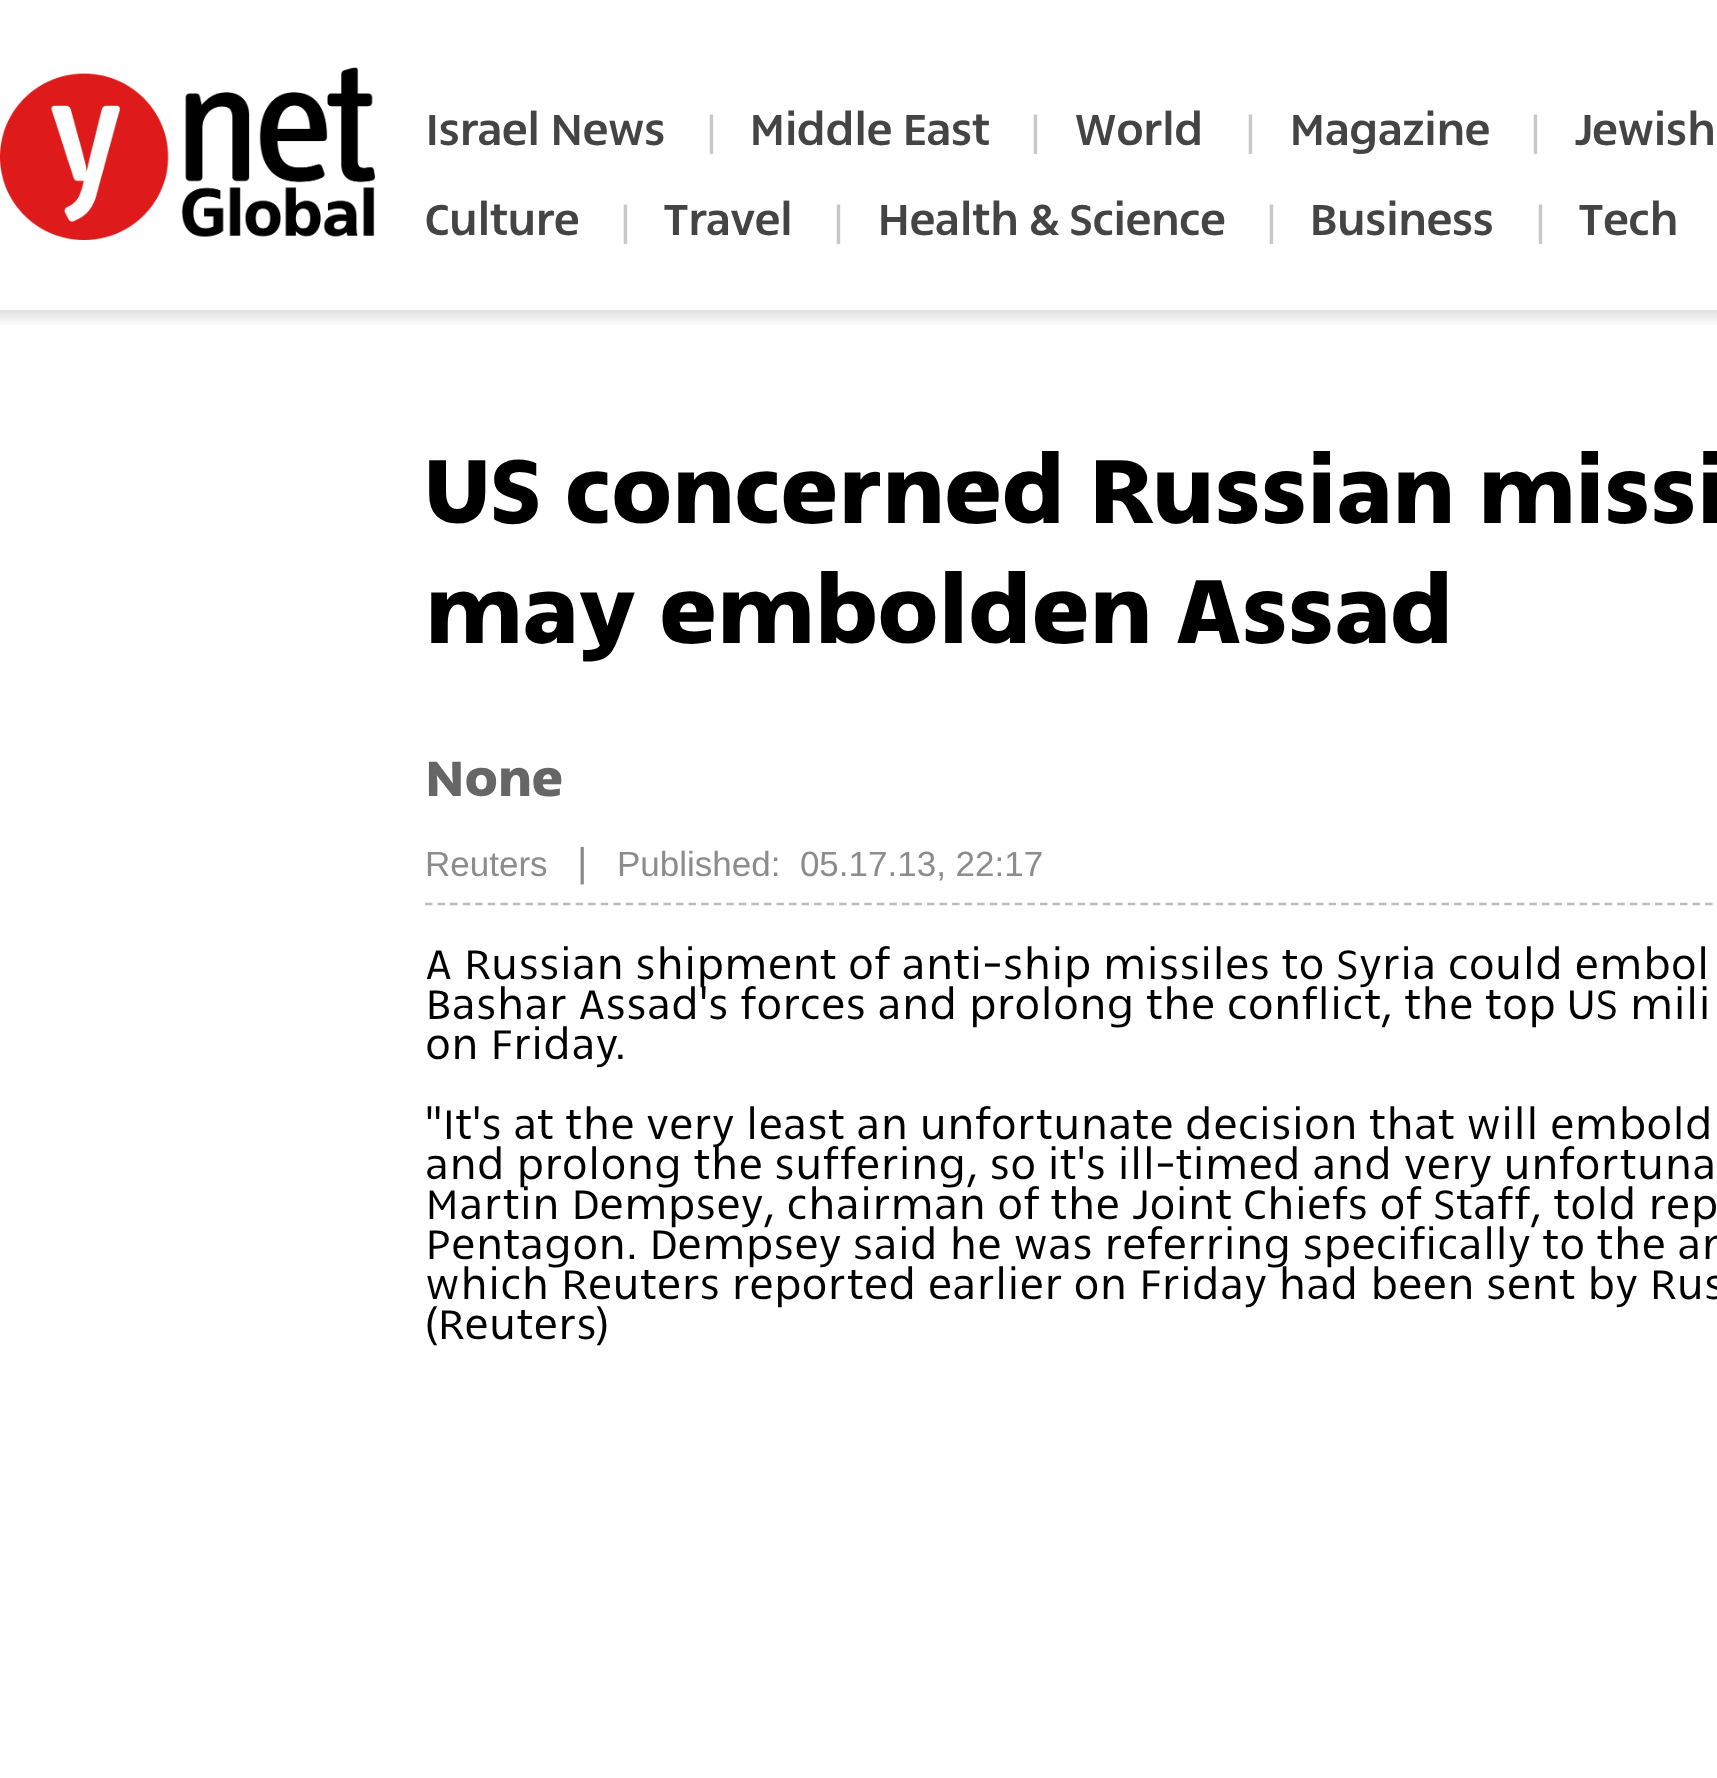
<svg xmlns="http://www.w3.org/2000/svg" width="1717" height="1778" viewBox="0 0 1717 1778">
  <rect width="100%" height="100%" fill="#fff"/>
  <image x="0" y="67" width="375" height="173" href="img/1.png"/>
  <image x="0" y="310" width="1717" height="15" href="img/2.png"/>
  <path d="M425 904H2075" fill="none" stroke="#bcbcbc" stroke-width="2.5" stroke-dasharray="7.5 5.05"/>
  <text x="425" y="145" font-family="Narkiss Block" font-size="52.5" font-weight="500" letter-spacing="-1.25" fill="#444">Israel News</text>
  <text x="706" y="145" font-family="Liberation Sans" font-size="42" fill="#c8c8c8">|</text>
  <text x="749" y="145" font-family="Narkiss Block" font-size="52.5" font-weight="500" letter-spacing="-1.25" fill="#444">Middle East</text>
  <text x="1030" y="145" font-family="Liberation Sans" font-size="42" fill="#c8c8c8">|</text>
  <text x="1074" y="145" font-family="Narkiss Block" font-size="52.5" font-weight="500" letter-spacing="-1.25" fill="#444">World</text>
  <text x="1245" y="145" font-family="Liberation Sans" font-size="42" fill="#c8c8c8">|</text>
  <text x="1289" y="145" font-family="Narkiss Block" font-size="52.5" font-weight="500" letter-spacing="-1.25" fill="#444">Magazine</text>
  <text x="1530" y="145" font-family="Liberation Sans" font-size="42" fill="#c8c8c8">|</text>
  <g font-family="Narkiss Block" font-size="52.5" font-weight="500" letter-spacing="-1.25" fill="#444">
    <text x="1574" y="145">Jewish</text>
    <text x="425" y="235">Culture</text>
  </g>
  <text x="620" y="235" font-family="Liberation Sans" font-size="42" fill="#c8c8c8">|</text>
  <text x="663" y="235" font-family="Narkiss Block" font-size="52.5" font-weight="500" letter-spacing="-1.25" fill="#444">Travel</text>
  <text x="833" y="235" font-family="Liberation Sans" font-size="42" fill="#c8c8c8">|</text>
  <text x="877" y="235" font-family="Narkiss Block" font-size="52.5" font-weight="500" letter-spacing="-1.25" fill="#444">Health &amp; Science</text>
  <text x="1266" y="235" font-family="Liberation Sans" font-size="42" fill="#c8c8c8">|</text>
  <text x="1309" y="235" font-family="Narkiss Block" font-size="52.5" font-weight="500" letter-spacing="-1.25" fill="#444">Business</text>
  <text x="1535" y="235" font-family="Liberation Sans" font-size="42" fill="#c8c8c8">|</text>
  <text x="1578" y="235" font-family="Narkiss Block" font-size="52.5" font-weight="500" letter-spacing="-1.25" fill="#444">Tech</text>
  <g font-family="Narkiss Block" font-size="110" font-weight="bold" fill="#000">
    <text x="425" y="523">US concerned Russian missi</text>
    <text x="425" y="643">may embolden Assad</text>
  </g>
  <text x="425" y="796" font-family="Narkiss Block" font-size="60" font-weight="bold" fill="#666">None</text>
  <text x="425" y="876" font-family="Liberation Sans" font-size="35" fill="#8c8c8c">Reuters</text>
  <text x="577" y="876" font-family="Liberation Sans" font-size="40" fill="#8c8c8c">|</text>
  <text x="617" y="876" font-family="Liberation Sans" font-size="35" fill="#8c8c8c" xml:space="preserve">Published:  05.17.13, 22:17</text>
  <g font-family="Narkiss Block" font-size="50" font-weight="300" fill="#000">
    <text x="425" y="979">A Russian shipment of anti-ship missiles to Syria could embol</text>
    <text x="425" y="1019">Bashar Assad's forces and prolong the conflict, the top US mili</text>
    <text x="425" y="1059">on Friday.</text>
    <text x="425" y="1139">"It's at the very least an unfortunate decision that will embold</text>
    <text x="425" y="1179">and prolong the suffering, so it's ill-timed and very unfortuna</text>
    <text x="425" y="1219">Martin Dempsey, chairman of the Joint Chiefs of Staff, told rep</text>
    <text x="425" y="1259">Pentagon. Dempsey said he was referring specifically to the an</text>
    <text x="425" y="1299">which Reuters reported earlier on Friday had been sent by Rus</text>
    <text x="425" y="1339">(Reuters)</text>
  </g>
</svg>
